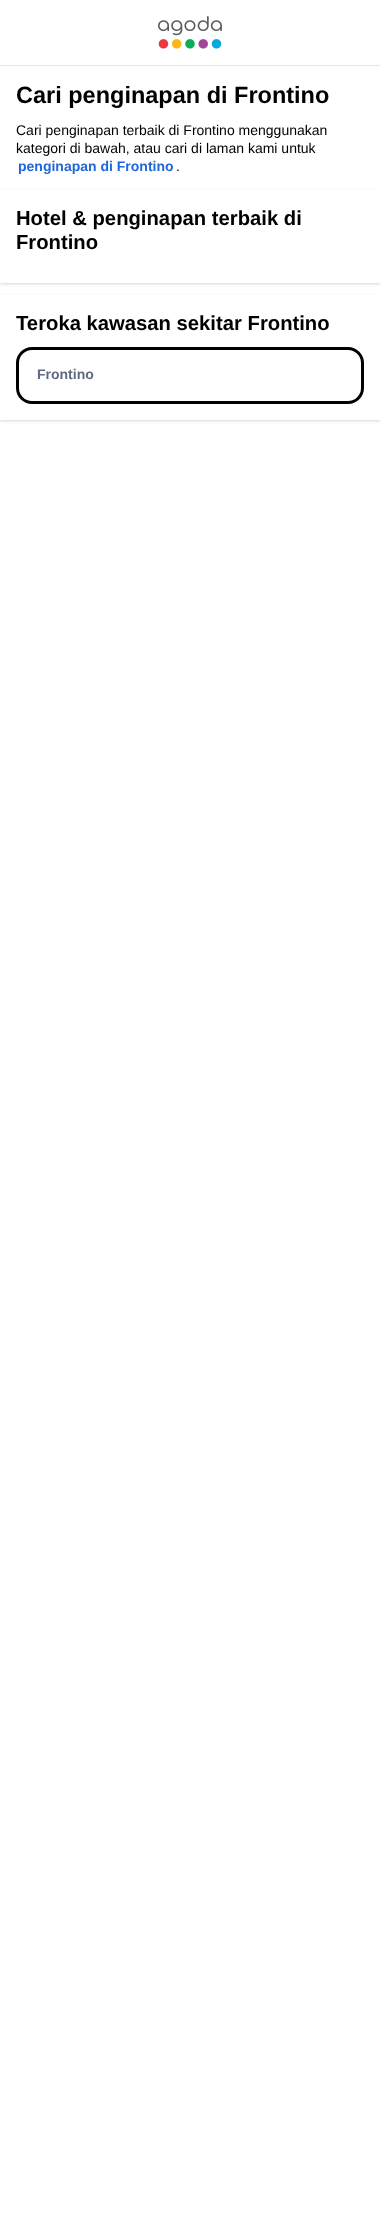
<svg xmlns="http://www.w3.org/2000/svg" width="380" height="2240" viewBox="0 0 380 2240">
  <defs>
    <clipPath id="clip1"><path d="M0 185H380V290H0ZM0 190H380V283H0Z" clip-rule="evenodd"/></clipPath>
    <clipPath id="clip2"><path d="M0 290H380V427H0ZM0 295H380V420H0Z" clip-rule="evenodd"/></clipPath>
  </defs>
  <rect width="100%" height="100%" fill="#fff"/>
  <image x="158" y="16" width="64" height="33" href="img/1.png"/>
  <path d="M0 65h380v1H0z" fill="#e5e7eb"/>
  <g clip-path="url(#clip1)">
    <path d="M0 191h380v93H0z" fill="#04070a29" filter="blur(1.5px)"/>
  </g>
  <g clip-path="url(#clip2)">
    <path d="M0 296h380v125H0z" fill="#04070a29" filter="blur(1.5px)"/>
  </g>
  <rect x="17.5" y="348.5" width="345" height="54" rx="14.5" fill="none" stroke="#000" stroke-width="3"/>
  <text x="16" y="103" font-family="Liberation Sans" font-size="23.5" font-weight="bold" fill="#000">Cari penginapan di Frontino</text>
  <g font-family="Liberation Sans" font-size="14" fill="#000">
    <text x="16" y="135">Cari penginapan terbaik di Frontino menggunakan</text>
    <text x="16" y="153">kategori di bawah, atau cari di laman kami untuk</text>
  </g>
  <text x="18" y="171" font-family="Liberation Sans" font-size="14" font-weight="bold" fill="#2067da">penginapan di Frontino</text>
  <text x="176" y="171" font-family="Liberation Sans" font-size="14" fill="#000">.</text>
  <g font-family="Liberation Sans" font-size="20.25" font-weight="bold" fill="#000">
    <text x="16" y="225">Hotel &amp; penginapan terbaik di</text>
    <text x="16" y="249">Frontino</text>
    <text x="16" y="330">Teroka kawasan sekitar Frontino</text>
  </g>
  <text x="37" y="379" font-family="Liberation Sans" font-size="14" font-weight="bold" fill="#5e6b82">Frontino</text>
</svg>
